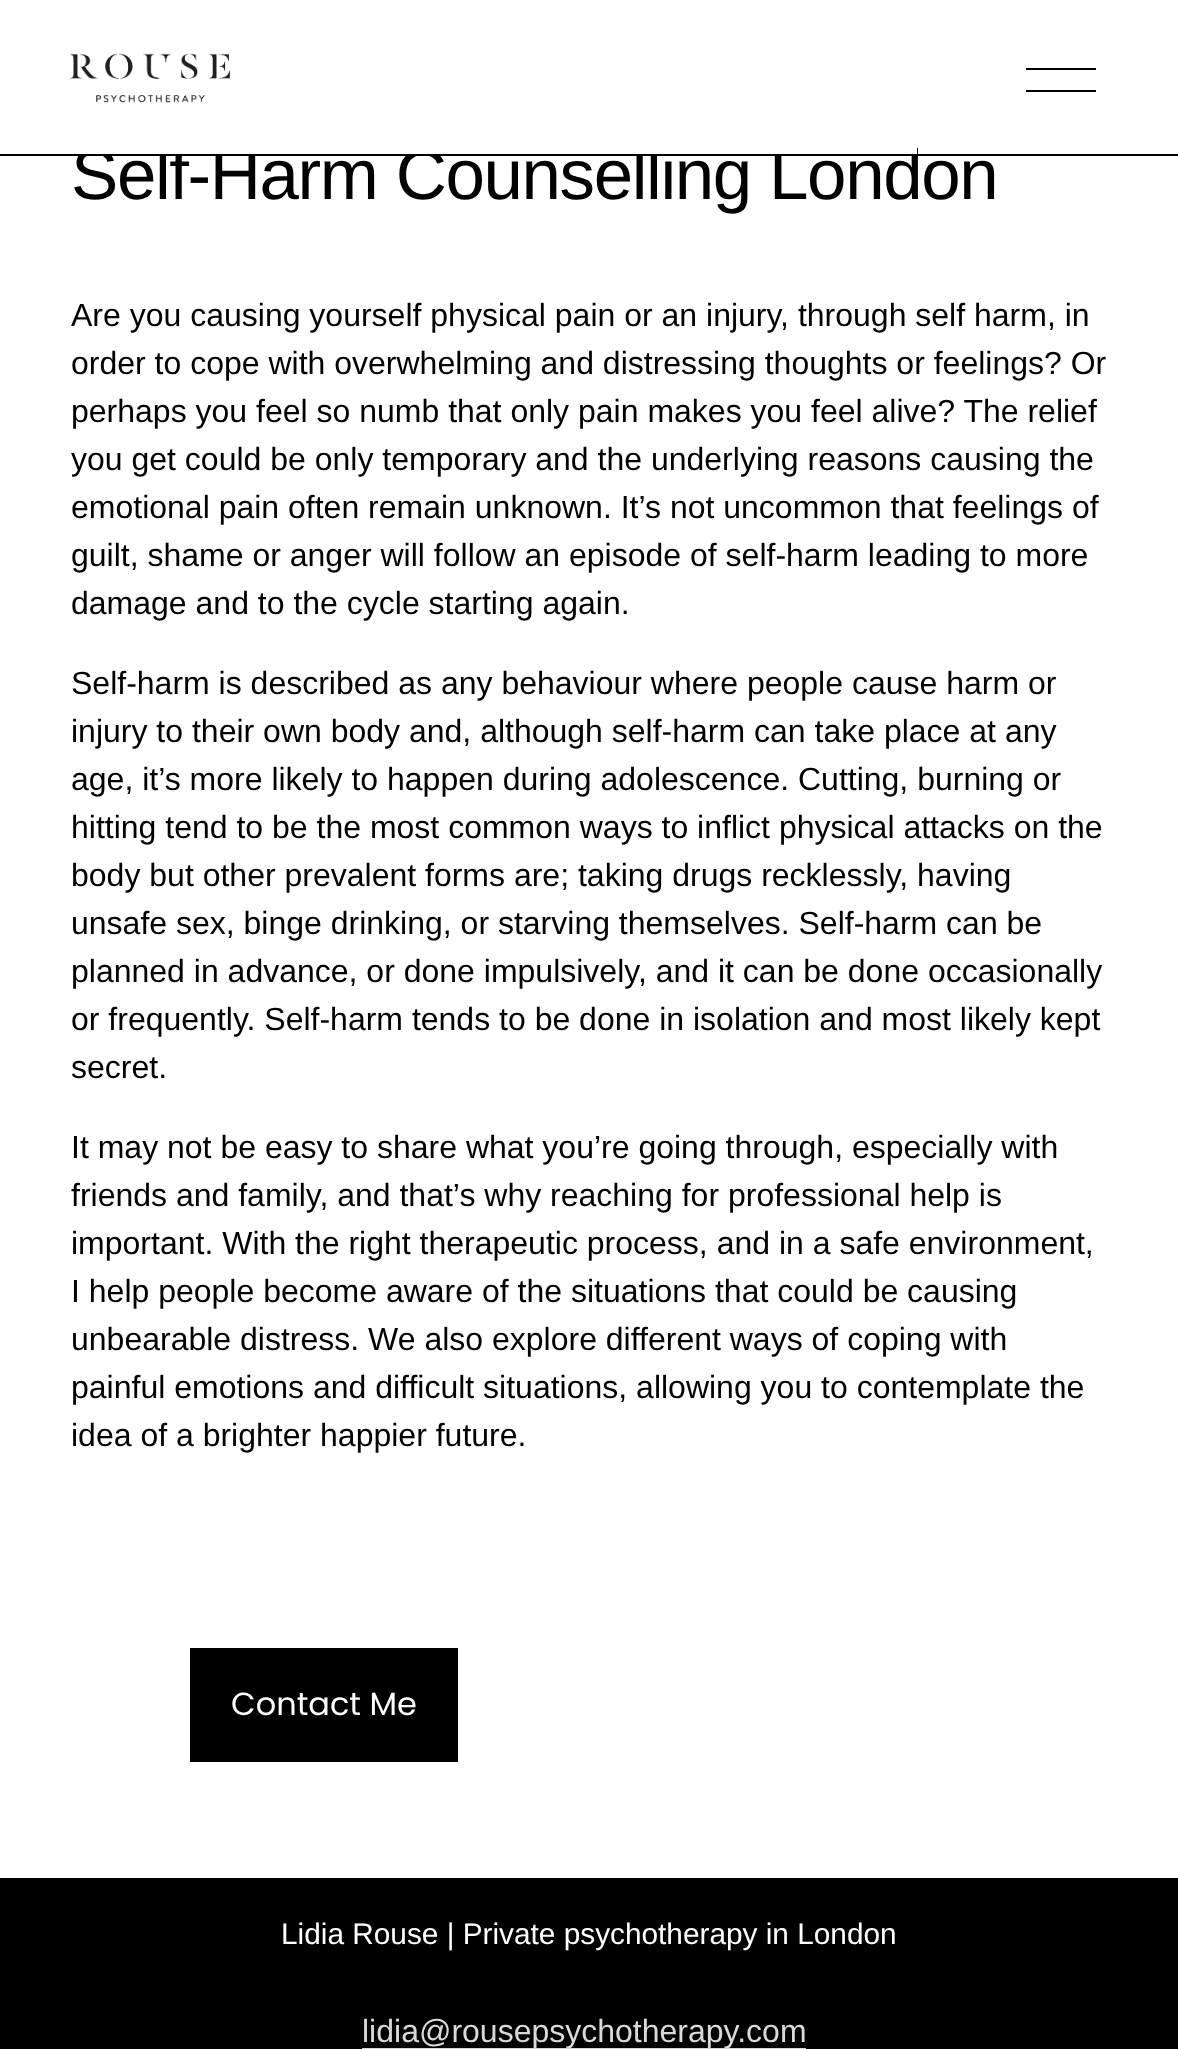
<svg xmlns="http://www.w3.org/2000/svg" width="1178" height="2049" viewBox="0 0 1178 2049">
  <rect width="100%" height="100%" fill="#fff"/>
  <image x="70" y="53" width="160" height="50" href="img/1.png"/>
  <path d="M1026 68h70v2H1026z" fill="#000"/>
  <path d="M1026 90h70v2H1026z" fill="#000"/>
  <path d="M0 154h1178v2H0z" fill="#000"/>
  <path d="M190 1648h268v114H190z" fill="#000"/>
  <path d="M0 1878h1178v171H0z" fill="#000"/>
  <path d="M362 2048h444v1H362z" fill="#d9d9d9"/>
  <text x="71" y="199" font-family="Liberation Sans" font-size="70.9" letter-spacing="-1.4" fill="#000">Self-Harm Counselling London</text>
  <path d="M79 147h838v7H79z" fill="#fff"/>
  <g font-family="Liberation Sans" font-size="32" fill="#000">
    <text x="71" y="326">Are you causing yourself physical pain or an injury, through self harm, in</text>
    <text x="71" y="374">order to cope with overwhelming and distressing thoughts or feelings? Or</text>
    <text x="71" y="422">perhaps you feel so numb that only pain makes you feel alive? The relief</text>
    <text x="71" y="470">you get could be only temporary and the underlying reasons causing the</text>
    <text x="71" y="518">emotional pain often remain unknown. It’s not uncommon that feelings of</text>
    <text x="71" y="566">guilt, shame or anger will follow an episode of self-harm leading to more</text>
    <text x="71" y="614">damage and to the cycle starting again.</text>
    <text x="71" y="694">Self-harm is described as any behaviour where people cause harm or</text>
    <text x="71" y="742">injury to their own body and, although self-harm can take place at any</text>
    <text x="71" y="790">age, it’s more likely to happen during adolescence. Cutting, burning or</text>
    <text x="71" y="838">hitting tend to be the most common ways to inflict physical attacks on the</text>
    <text x="71" y="886">body but other prevalent forms are; taking drugs recklessly, having</text>
    <text x="71" y="934">unsafe sex, binge drinking, or starving themselves. Self-harm can be</text>
    <text x="71" y="982">planned in advance, or done impulsively, and it can be done occasionally</text>
    <text x="71" y="1030">or frequently. Self-harm tends to be done in isolation and most likely kept</text>
    <text x="71" y="1078">secret.</text>
    <text x="71" y="1158">It may not be easy to share what you’re going through, especially with</text>
    <text x="71" y="1206">friends and family, and that’s why reaching for professional help is</text>
    <text x="71" y="1254">important. With the right therapeutic process, and in a safe environment,</text>
    <text x="71" y="1302">I help people become aware of the situations that could be causing</text>
    <text x="71" y="1350">unbearable distress. We also explore different ways of coping with</text>
    <text x="71" y="1398">painful emotions and difficult situations, allowing you to contemplate the</text>
    <text x="71" y="1446">idea of a brighter happier future.</text>
  </g>
  <text x="231" y="1715" font-family="Poppins" font-size="32" fill="#fff">Contact Me</text>
  <text x="281" y="1944" font-family="Liberation Sans" font-size="29.8" fill="#fff">Lidia Rouse | Private psychotherapy in London</text>
  <text x="362" y="2042" font-family="Liberation Sans" font-size="32" fill="#d9d9d9">lidia@rousepsychotherapy.com</text>
</svg>
